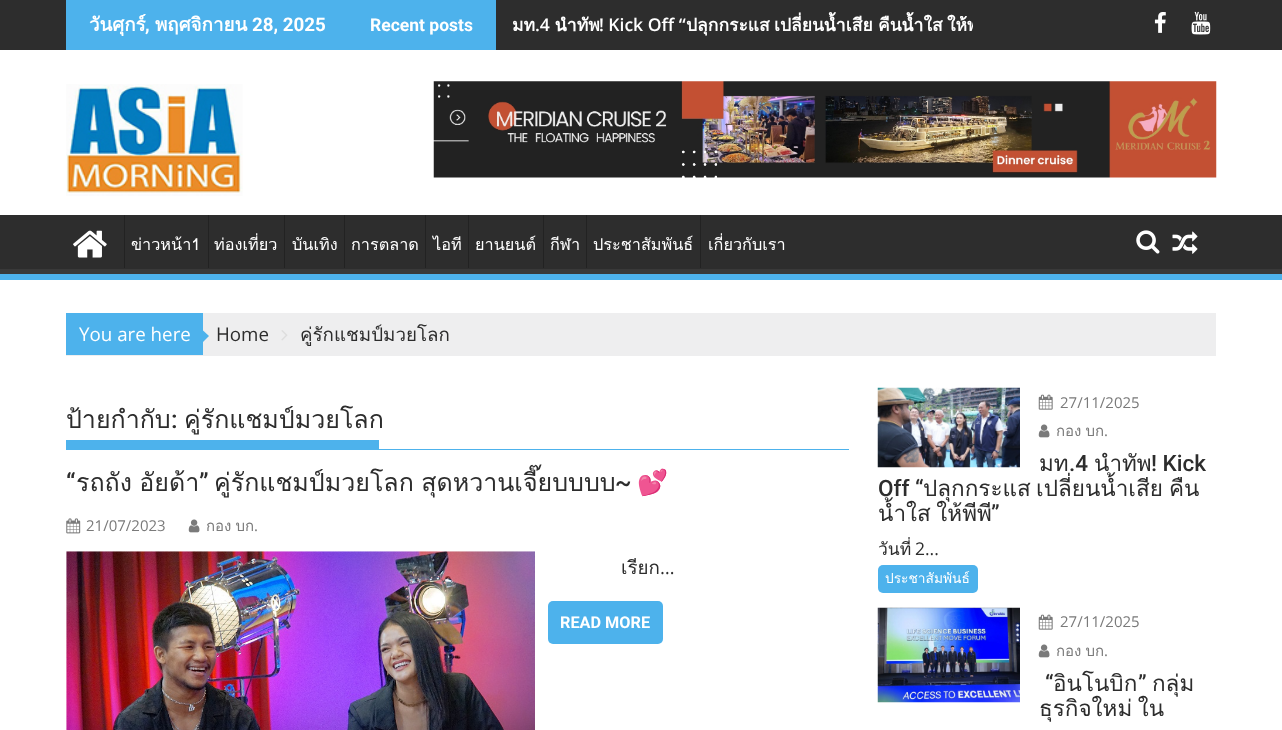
<svg xmlns="http://www.w3.org/2000/svg" width="1282" height="730" viewBox="0 0 1282 730">
  <defs>
    <clipPath id="clip1"><path d="M0 215h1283v59H0z"/></clipPath>
    <clipPath id="clip2"><path d="M496 0h477v50H496z"/></clipPath>
    <clipPath id="clip3"><path d="M871 381h345v220H871z"/></clipPath>
  </defs>
  <rect width="100%" height="100%" fill="#fff"/>
  <path d="M0 0h1282v50H0z" fill="#2d2d2d"/>
  <path d="M66 0h430v50H66z" fill="#4db2ec"/>
  <image x="1154" y="12" width="12" height="21" href="img/1.png"/>
  <image x="1191" y="11" width="20" height="24" href="img/2.png"/>
  <image x="66" y="84" width="177" height="112" href="img/3.png"/>
  <image x="433" y="81" width="784" height="97" href="img/4.png"/>
  <path d="M0 215h1282v54H0z" fill="#2d2d2d"/>
  <g clip-path="url(#clip1)">
    <path d="M-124 91H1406V398H-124ZM-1 208H1281C1282 208 1282 208 1282 209V268C1282 268 1282 269 1281 269H-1C-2 269-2 268-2 268V209C-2 208-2 208-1 208Z" fill="#393939" fill-rule="evenodd"/>
  </g>
  <path d="M0 274h1282v6H0z" fill="#4db2ec"/>
  <image x="73" y="230" width="34" height="28" href="img/5.png"/>
  <path d="M124 215h1v53H124z" fill="#222"/>
  <path d="M208 215h1v53H208z" fill="#222"/>
  <path d="M284 215h1v53H284z" fill="#222"/>
  <path d="M344 215h1v53H344z" fill="#222"/>
  <path d="M425 215h1v53H425z" fill="#222"/>
  <path d="M468 215h1v53H468z" fill="#222"/>
  <path d="M543 215h1v53H543z" fill="#222"/>
  <path d="M586 215h1v53H586z" fill="#222"/>
  <path d="M700 215h1v53H700z" fill="#222"/>
  <image x="1136" y="230" width="24" height="24" href="img/6.png"/>
  <image x="1172" y="231" width="26" height="23" href="img/7.png"/>
  <path d="M66 313h1150v43H66z" fill="#eeeeef"/>
  <path d="M66 313h137v42H66z" fill="#4db2ec"/>
  <path d="M202.5 342.5V330L209 336Z" fill="#4db2ec"/>
  <image x="281" y="330" width="7" height="11" href="img/8.png"/>
  <path d="M66 449h783v1H66z" fill="#4db2ec"/>
  <path d="M66 440h313v9H66z" fill="#4db2ec"/>
  <image x="66" y="518" width="15" height="16" href="img/9.png"/>
  <image x="188" y="519" width="12" height="14" href="img/10.png"/>
  <image x="66" y="551" width="469" height="179" href="img/11.png"/>
  <rect x="548" y="601" width="115" height="43" rx="5" fill="#4db2ec"/>
  <image x="877" y="387" width="143" height="81" href="img/12.png"/>
  <image x="1038" y="394" width="15" height="16" href="img/13.png"/>
  <image x="1038" y="424" width="12" height="14" href="img/10.png"/>
  <rect x="878" y="565" width="100" height="28" rx="5" fill="#4db2ec"/>
  <image x="877" y="607" width="143" height="96" href="img/14.png"/>
  <image x="1038" y="614" width="15" height="16" href="img/13.png"/>
  <image x="1038" y="644" width="12" height="14" href="img/10.png"/>
  <text x="89" y="31" font-family="Loma" font-size="18.75" font-weight="bold" fill="#fff">วันศุกร์</text>
  <text x="145" y="31" font-family="Roboto" font-size="18.75" font-weight="bold" fill="#fff">,</text>
  <text x="155" y="31" font-family="Loma" font-size="18.75" font-weight="bold" fill="#fff">พฤศจิกายน</text>
  <text x="252" y="31" font-family="Roboto" font-size="18.75" font-weight="bold" fill="#fff">28, 2025</text>
  <text x="370" y="31" font-family="Roboto" font-size="17.5" font-weight="bold" fill="#fff">Recent posts</text>
  <text x="512" y="31" font-family="Loma" font-size="17.5" font-weight="bold" fill="#fff">มท</text>
  <text x="535" y="31" font-family="Open Sans" font-size="17.5" font-weight="600" fill="#fff">.4</text>
  <text x="555" y="31" font-family="Loma" font-size="17.5" font-weight="bold" fill="#fff">นำทัพ</text>
  <text x="599" y="31" font-family="Open Sans" font-size="17.5" font-weight="600" fill="#fff">! Kick Off “</text>
  <g font-family="Loma" font-size="17.5" font-weight="bold" fill="#fff">
    <text x="686" y="31">ปลุกกระแส</text>
    <text x="774" y="31">เปลี่ยนน้ำเสีย</text>
    <text x="878" y="31">คืนน้ำใส</text>
  </g>
  <g clip-path="url(#clip2)">
    <text x="947" y="31" font-family="Loma" font-size="17.5" font-weight="bold" fill="#fff">ให้พ</text>
  </g>
  <g font-family="Loma" font-size="16.25" fill="#fff">
    <text x="131" y="250">ข่าวหน้า1</text>
    <text x="214" y="250">ท่องเที่ยว</text>
    <text x="292" y="250">บันเทิง</text>
    <text x="351" y="250">การตลาด</text>
    <text x="433" y="250">ไอที</text>
    <text x="475" y="250">ยานยนต์</text>
    <text x="550" y="250">กีฬา</text>
    <text x="593" y="250">ประชาสัมพันธ์</text>
    <text x="708" y="250">เกี่ยวกับเรา</text>
  </g>
  <text x="79" y="341" font-family="Open Sans" font-size="18.75" fill="#fff">You are here</text>
  <text x="216" y="341" font-family="Open Sans" font-size="18.75" fill="#2d2d2d">Home</text>
  <text x="300" y="341" font-family="Loma" font-size="18.75" fill="#2d2d2d">คู่รักแชมป์มวยโลก</text>
  <text x="66" y="428" font-family="Loma" font-size="25" fill="#2d2d2d">ป้ายกำกับ</text>
  <text x="171" y="428" font-family="Roboto" font-size="25" font-weight="500" fill="#2d2d2d">:</text>
  <text x="184" y="428" font-family="Loma" font-size="25" fill="#2d2d2d">คู่รักแชมป์มวยโลก</text>
  <text x="66" y="491" font-family="Roboto" font-size="25" font-weight="500" fill="#2d2d2d">“</text>
  <text x="76" y="491" word-spacing="-1" font-family="Loma" font-size="25" fill="#2d2d2d">รถถัง อัยด้า</text>
  <text x="199" y="491" font-family="Roboto" font-size="25" font-weight="500" fill="#2d2d2d">”</text>
  <text x="214" y="491" word-spacing="-1" font-family="Loma" font-size="25" fill="#2d2d2d">คู่รักแชมป์มวยโลก สุดหวานเจี๊ยบบบบ</text>
  <text x="637" y="491" font-family="Noto Color Emoji" font-size="25" fill="#2d2d2d">💕</text>
  <text x="615" y="491" font-family="Roboto" font-size="25" font-weight="500" fill="#2d2d2d">~</text>
  <text x="86" y="531" font-family="Open Sans" font-size="15" fill="#7a7a7a">21/07/2023</text>
  <text x="206" y="531" word-spacing="-1" font-family="Loma" font-size="15" fill="#7a7a7a">กอง บก</text>
  <text x="254" y="531" font-family="Open Sans" font-size="15" fill="#7a7a7a">.</text>
  <text x="621" y="574" font-family="Loma" font-size="18.75" fill="#2d2d2d">เรียก</text>
  <text x="660" y="574" font-family="Open Sans" font-size="18.75" fill="#2d2d2d">…</text>
  <text x="560" y="628" font-family="Roboto" font-size="16.25" font-weight="bold" fill="#fff">READ MORE</text>
  <text x="1060" y="408" font-family="Open Sans" font-size="15" fill="#7a7a7a">27/11/2025</text>
  <text x="1056" y="436" word-spacing="-1" font-family="Loma" font-size="15" fill="#7a7a7a">กอง บก</text>
  <text x="1104" y="436" font-family="Open Sans" font-size="15" fill="#7a7a7a">.</text>
  <text x="1039" y="471" font-family="Loma" font-size="22.5" fill="#2d2d2d">มท</text>
  <text x="1069" y="471" font-family="Roboto" font-size="22.5" font-weight="500" fill="#2d2d2d">.4</text>
  <text x="1094" y="471" font-family="Loma" font-size="22.5" fill="#2d2d2d">นำทัพ</text>
  <g font-family="Roboto" font-size="22.5" font-weight="500" fill="#2d2d2d">
    <text x="1151" y="471">! Kick</text>
    <text x="878" y="496">Off “</text>
  </g>
  <g font-family="Loma" font-size="22.5" fill="#2d2d2d">
    <text x="923" y="496">ปลุกกระแส</text>
    <text x="1036" y="496">เปลี่ยนน้ำเสีย</text>
    <text x="1169" y="496">คืน</text>
  </g>
  <g clip-path="url(#clip3)">
    <text x="878" y="521" word-spacing="-2" font-family="Loma" font-size="22.5" fill="#2d2d2d">น้ำใส ให้พีพี</text>
  </g>
  <text x="991" y="521" font-family="Roboto" font-size="22.5" font-weight="500" fill="#2d2d2d">”</text>
  <text x="878" y="555" font-family="Loma" font-size="17.5" fill="#2d2d2d">วันที่</text>
  <text x="915" y="555" font-family="Open Sans" font-size="17.5" fill="#2d2d2d">2...</text>
  <text x="885" y="583" font-family="Loma" font-size="13.75" fill="#fff">ประชาสัมพันธ์</text>
  <text x="1060" y="627" font-family="Open Sans" font-size="15" fill="#7a7a7a">27/11/2025</text>
  <text x="1056" y="656" word-spacing="-1" font-family="Loma" font-size="15" fill="#7a7a7a">กอง บก</text>
  <text x="1104" y="656" font-family="Open Sans" font-size="15" fill="#7a7a7a">.</text>
  <text x="1045" y="691" font-family="Roboto" font-size="22.5" font-weight="500" fill="#2d2d2d">“</text>
  <text x="1053" y="691" font-family="Loma" font-size="22.5" fill="#2d2d2d">อินโนบิก</text>
  <text x="1138" y="691" font-family="Roboto" font-size="22.5" font-weight="500" fill="#2d2d2d">”</text>
  <g font-family="Loma" font-size="22.5" fill="#2d2d2d">
    <text x="1152" y="691">กลุ่ม</text>
    <text x="1039" y="716" word-spacing="-2">ธุรกิจใหม่ ใน</text>
  </g>
</svg>
